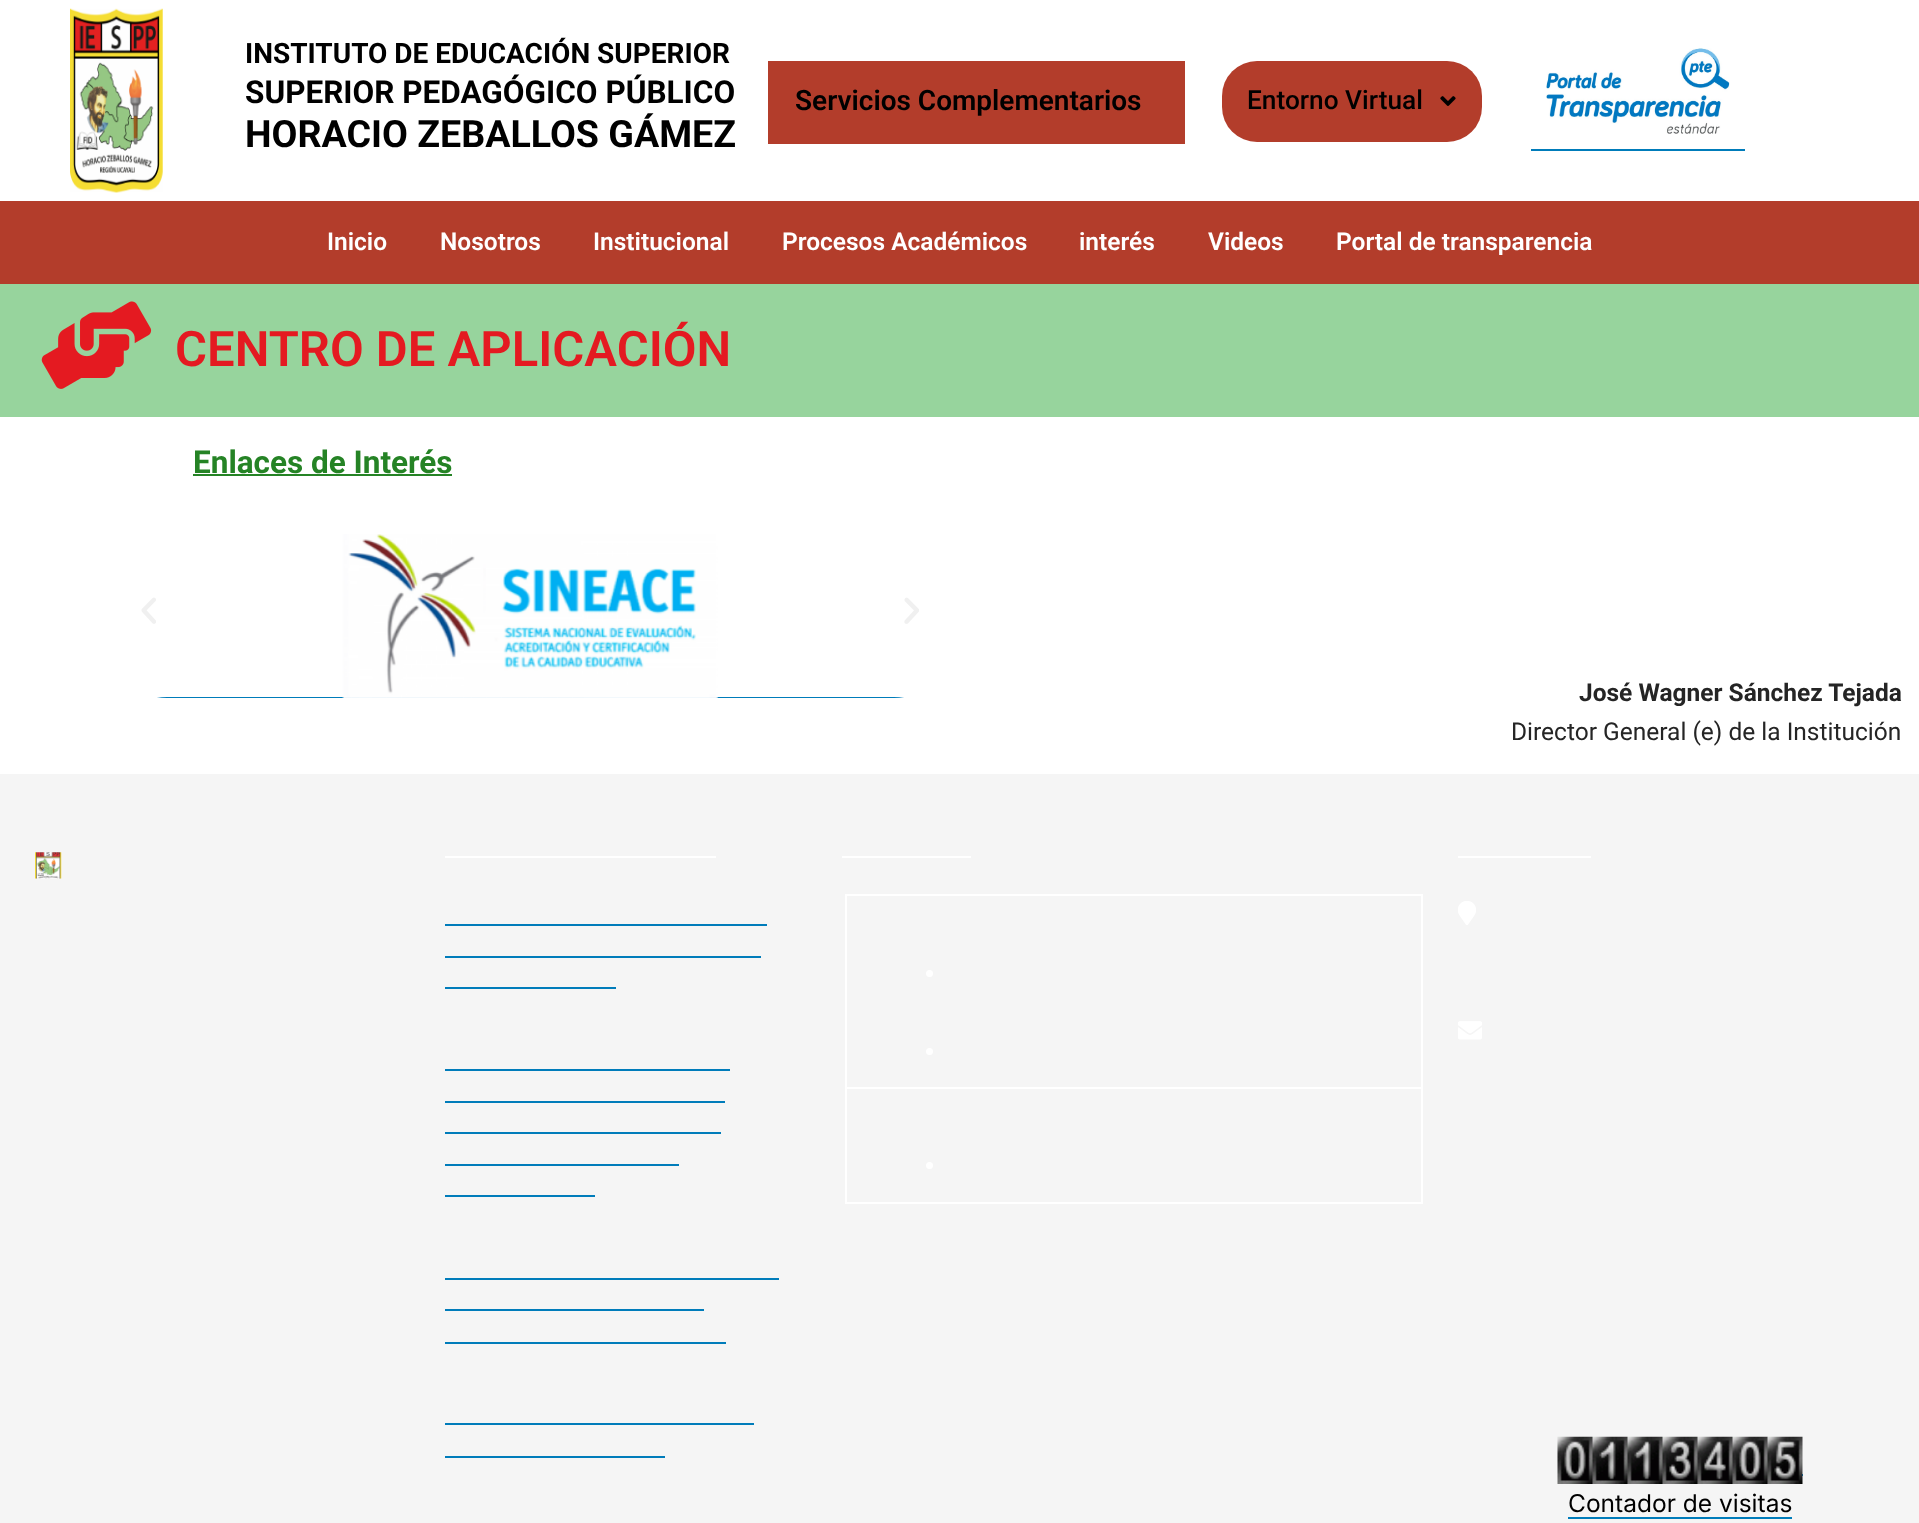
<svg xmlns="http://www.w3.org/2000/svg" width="1919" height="1523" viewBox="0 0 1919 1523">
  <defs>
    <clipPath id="clip1"><rect x="114" y="523" width="833" height="175" rx="53"/></clipPath>
  </defs>
  <rect width="100%" height="100%" fill="#f5f5f5"/>
  <path d="M0 0h1919v201H0z" fill="#fff"/>
  <image x="70" y="8" width="93" height="185" href="img/1.png"/>
  <path d="M768 61h417v83H768z" fill="#b33d2b"/>
  <rect x="1222" y="61" width="260" height="81" rx="35" fill="#b33d2b"/>
  <image x="1440" y="96" width="16" height="10" href="img/2.png"/>
  <path d="M1531 149h214v2H1531z" fill="#007cba"/>
  <image x="1546" y="48" width="184" height="86" href="img/3.png"/>
  <path d="M0 201h1919v83H0z" fill="#b33d2b"/>
  <path d="M0 284h1919v133H0z" fill="#97d49d"/>
  <image x="41" y="301" width="111" height="88" href="img/4.png"/>
  <path d="M0 417h1919v357H0z" fill="#fff"/>
  <path d="M193 474h259v2H193z" fill="#258325"/>
  <image x="141" y="597" width="15" height="27" href="img/5.png"/>
  <g clip-path="url(#clip1)">
    <path d="M157 697h747v1H157z" fill="#007cba"/>
  </g>
  <image x="342" y="534" width="377" height="164" href="img/6.png"/>
  <image x="904" y="597" width="15" height="27" href="img/7.png"/>
  <image x="35" y="852" width="27" height="27" href="img/8.png"/>
  <path d="M445 856h271v2H445z" fill="#fff"/>
  <path d="M445 924h322v2H445z" fill="#007cba"/>
  <path d="M445 956h316v2H445z" fill="#007cba"/>
  <path d="M445 987h171v2H445z" fill="#007cba"/>
  <path d="M445 1069h285v2H445z" fill="#007cba"/>
  <path d="M445 1101h280v2H445z" fill="#007cba"/>
  <path d="M445 1132h276v2H445z" fill="#007cba"/>
  <path d="M445 1164h234v2H445z" fill="#007cba"/>
  <path d="M445 1195h150v2H445z" fill="#007cba"/>
  <path d="M445 1278h334v2H445z" fill="#007cba"/>
  <path d="M445 1309h259v2H445z" fill="#007cba"/>
  <path d="M445 1342h281v2H445z" fill="#007cba"/>
  <path d="M445 1423h309v2H445z" fill="#007cba"/>
  <path d="M445 1456h220v2H445z" fill="#007cba"/>
  <path d="M842 856h129v2H842z" fill="#fff"/>
  <path d="M845 894h578v2H845z" fill="#fff"/>
  <path d="M845 1087h578v2H845z" fill="#fff"/>
  <path d="M1421 1087h2v117H1421z" fill="#fff"/>
  <path d="M1421 894h2v195H1421z" fill="#fff"/>
  <path d="M845 1202h578v2H845z" fill="#fff"/>
  <path d="M845 1087h2v117H845z" fill="#fff"/>
  <path d="M845 894h2v195H845z" fill="#fff"/>
  <circle cx="929.5" cy="973.5" r="3.5" fill="#fff"/>
  <circle cx="929.5" cy="1051.5" r="3.5" fill="#fff"/>
  <circle cx="929.5" cy="1165.5" r="3.5" fill="#fff"/>
  <path d="M1458 856h133v2H1458z" fill="#fff"/>
  <image x="1458" y="901" width="18" height="24" href="img/9.png"/>
  <image x="1458" y="1021" width="24" height="19" href="img/10.png"/>
  <path d="M1802 1474h1v2H1802z" fill="#007cba"/>
  <image x="1557" y="1436" width="246" height="48" href="img/11.png"/>
  <path d="M1568 1517h224v2H1568z" fill="#007cba"/>
  <text x="245" y="63" font-family="Roboto" font-size="28" font-weight="bold" fill="#000">INSTITUTO DE EDUCACIÓN SUPERIOR</text>
  <text x="245" y="103" font-family="Roboto" font-size="31.5" font-weight="bold" fill="#000">SUPERIOR PEDAGÓGICO PÚBLICO</text>
  <text x="245" y="147" font-family="Roboto" font-size="37.6" font-weight="bold" fill="#000">HORACIO ZEBALLOS GÁMEZ</text>
  <text x="795" y="110" font-family="Roboto" font-size="28" font-weight="600" fill="#000">Servicios Complementarios</text>
  <text x="1247" y="109" font-family="Roboto" font-size="26.25" font-weight="500" fill="#000">Entorno Virtual</text>
  <g font-family="Roboto" font-size="24.5" font-weight="600" fill="#fff">
    <text x="327" y="250">Inicio</text>
    <text x="440" y="250">Nosotros</text>
    <text x="593" y="250">Institucional</text>
    <text x="782" y="250">Procesos Académicos</text>
    <text x="1079" y="250">interés</text>
    <text x="1208" y="250">Videos</text>
    <text x="1336" y="250">Portal de transparencia</text>
  </g>
  <text x="175" y="366" font-family="Roboto" font-size="49" font-weight="600" fill="#e41a21">CENTRO DE APLICACIÓN</text>
  <text x="193" y="473" font-family="Roboto" font-size="31.5" font-weight="bold" fill="#258325">Enlaces de Interés</text>
  <text x="1579" y="701" font-family="Roboto" font-size="24.5" font-weight="bold" fill="#252525">José Wagner Sánchez Tejada</text>
  <text x="1511" y="740" font-family="Roboto" font-size="24.5" fill="#252525">Director General (e) de la Institución</text>
  <text x="1568" y="1512" font-family="Inter" font-size="24.5" fill="#000">Contador de visitas</text>
</svg>
